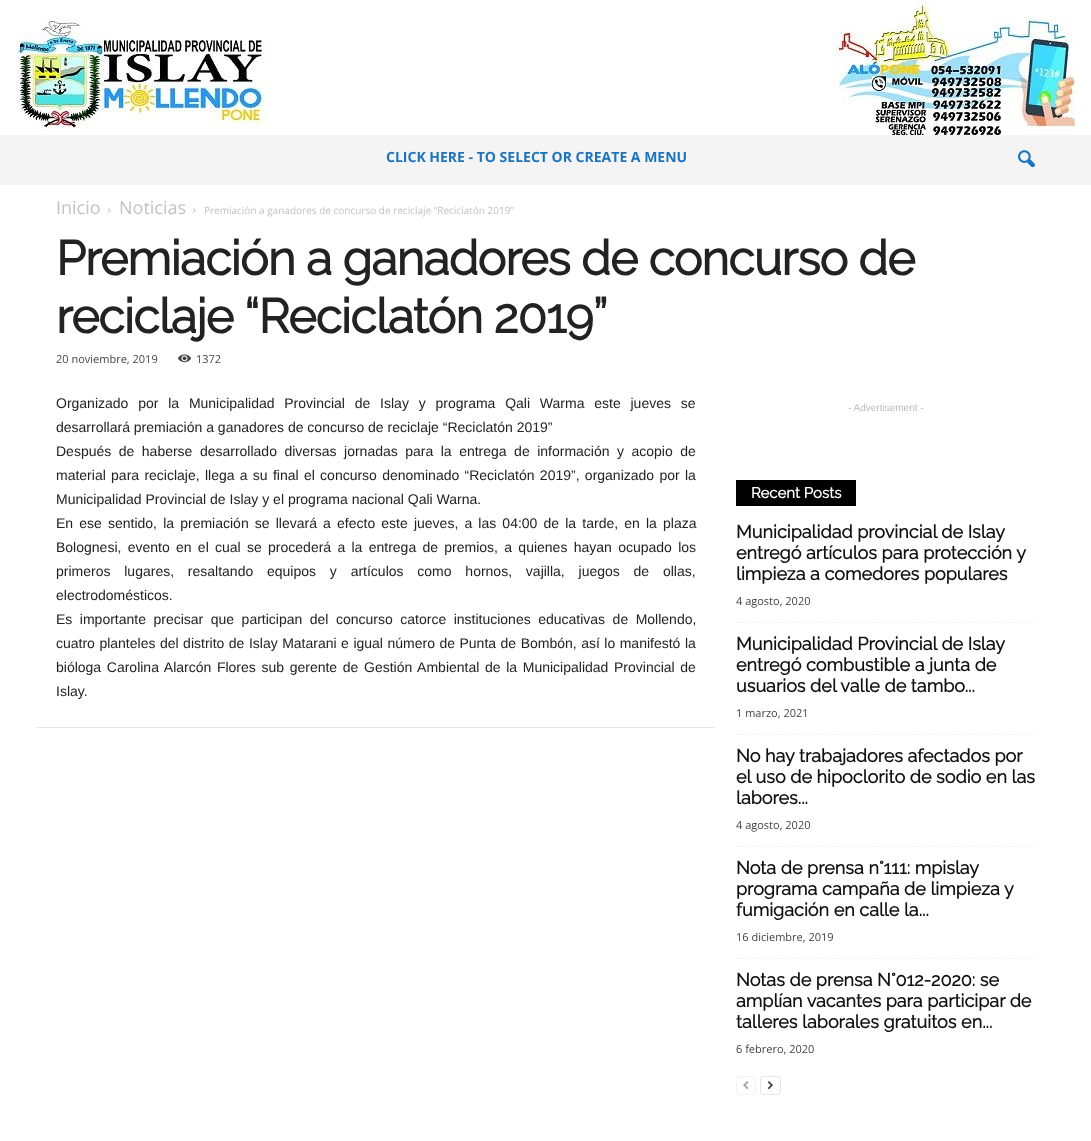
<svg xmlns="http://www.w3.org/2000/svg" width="1091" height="1141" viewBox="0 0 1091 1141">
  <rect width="100%" height="100%" fill="#fff"/>
  <image x="17" y="0" width="1058" height="135" href="img/1.png"/>
  <path d="M0 135h1091v50H0z" fill="#f4f4f4"/>
  <image x="1018" y="150" width="17" height="18" href="img/2.png"/>
  <image x="108" y="208" width="3" height="5" href="img/3.png"/>
  <image x="193" y="208" width="3" height="5" href="img/3.png"/>
  <image x="178" y="354" width="13" height="9" href="img/4.png"/>
  <path d="M36 727h679v1H36z" fill="#e6e6e6"/>
  <path d="M736 480h120v26H736z" fill="#000"/>
  <path d="M736 622.5H1036" fill="none" stroke="#f1f1f1" stroke-dasharray="3 2.03"/>
  <path d="M736 734.5H1036" fill="none" stroke="#f1f1f1" stroke-dasharray="3 2.03"/>
  <path d="M736 846.5H1036" fill="none" stroke="#f1f1f1" stroke-dasharray="3 2.03"/>
  <path d="M736 958.5H1036" fill="none" stroke="#f1f1f1" stroke-dasharray="3 2.03"/>
  <rect x="736.5" y="1076.5" width="19" height="18" rx="2.5" fill="none" stroke="#f3f3f3"/>
  <image x="743" y="1081" width="6" height="9" href="img/5.png"/>
  <rect x="760.5" y="1076.5" width="20" height="18" rx="2.5" fill="none" stroke="#e6e6e6"/>
  <image x="767" y="1081" width="6" height="9" href="img/6.png"/>
  <text x="386" y="162" font-family="Open Sans" font-size="14" font-weight="bold" fill="#1e73be">CLICK HERE - TO SELECT OR CREATE A MENU</text>
  <g font-family="Open Sans" font-size="18" fill="#c3c3c3">
    <text x="56" y="214">Inicio</text>
    <text x="119" y="214">Noticias</text>
  </g>
  <text x="204" y="214" font-family="Open Sans" font-size="10" fill="#c3c3c3">Premiación a ganadores de concurso de reciclaje “Reciclatón 2019”</text>
  <g font-family="Raleway" font-size="48" font-weight="bold" letter-spacing="-0.95" fill="#222">
    <text x="56" y="275">Premiación a ganadores de concurso de</text>
    <text x="56" y="333">reciclaje “Reciclatón 2019”</text>
  </g>
  <g font-family="Open Sans" font-size="11" fill="#444">
    <text x="56" y="363">20 noviembre, 2019</text>
    <text x="196" y="363">1372</text>
  </g>
  <g font-family="Liberation Sans" font-size="14" fill="#222">
    <text x="56" y="408" word-spacing="5.9">Organizado por la Municipalidad Provincial de Islay y programa Qali Warma este jueves se</text>
    <text x="56" y="432">desarrollará premiación a ganadores de concurso de reciclaje “Reciclatón 2019”</text>
    <text x="56" y="456" word-spacing="3.6">Después de haberse desarrollado diversas jornadas para la entrega de información y acopio de</text>
    <text x="56" y="480" word-spacing="1.4">material para reciclaje, llega a su final el concurso denominado “Reciclatón 2019”, organizado por la</text>
    <text x="56" y="504">Municipalidad Provincial de Islay y el programa nacional Qali Warna.</text>
    <text x="56" y="528" word-spacing="2.25">En ese sentido, la premiación se llevará a efecto este jueves, a las 04:00 de la tarde, en la plaza</text>
    <text x="56" y="552" word-spacing="2.4">Bolognesi, evento en el cual se procederá a la entrega de premios, a quienes hayan ocupado los</text>
    <text x="56" y="576" word-spacing="9.9">primeros lugares, resaltando equipos y artículos como hornos, vajilla, juegos de ollas,</text>
    <text x="56" y="600">electrodomésticos.</text>
    <text x="56" y="624" word-spacing="3.6">Es importante precisar que participan del concurso catorce instituciones educativas de Mollendo,</text>
    <text x="56" y="648" word-spacing="0.6">cuatro planteles del distrito de Islay Matarani e igual número de Punta de Bombón, así lo manifestó la</text>
    <text x="56" y="672" word-spacing="1.75">bióloga Carolina Alarcón Flores sub gerente de Gestión Ambiental de la Municipalidad Provincial de</text>
    <text x="56" y="696">Islay.</text>
  </g>
  <text x="848" y="411" font-family="Liberation Sans" font-size="10" fill="#bbb">- Advertisement -</text>
  <text x="751" y="498" font-family="Raleway" font-size="15" font-weight="bold" fill="#fff">Recent Posts</text>
  <g font-family="Raleway" font-size="18" font-weight="bold" fill="#111">
    <text x="736" y="538">Municipalidad provincial de Islay</text>
    <text x="736" y="559">entregó artículos para protección y</text>
    <text x="736" y="580">limpieza a comedores populares</text>
  </g>
  <text x="736" y="605" font-family="Open Sans" font-size="11" fill="#444">4 agosto, 2020</text>
  <g font-family="Raleway" font-size="18" font-weight="bold" fill="#111">
    <text x="736" y="650">Municipalidad Provincial de Islay</text>
    <text x="736" y="671">entregó combustible a junta de</text>
    <text x="736" y="692">usuarios del valle de tambo...</text>
  </g>
  <text x="736" y="717" font-family="Open Sans" font-size="11" fill="#444">1 marzo, 2021</text>
  <g font-family="Raleway" font-size="18" font-weight="bold" fill="#111">
    <text x="736" y="762">No hay trabajadores afectados por</text>
    <text x="736" y="783">el uso de hipoclorito de sodio en las</text>
    <text x="736" y="804">labores...</text>
  </g>
  <text x="736" y="829" font-family="Open Sans" font-size="11" fill="#444">4 agosto, 2020</text>
  <g font-family="Raleway" font-size="18" font-weight="bold" fill="#111">
    <text x="736" y="874">Nota de prensa n°111: mpislay</text>
    <text x="736" y="895">programa campaña de limpieza y</text>
    <text x="736" y="916">fumigación en calle la...</text>
  </g>
  <text x="736" y="941" font-family="Open Sans" font-size="11" fill="#444">16 diciembre, 2019</text>
  <g font-family="Raleway" font-size="18" font-weight="bold" fill="#111">
    <text x="736" y="986">Notas de prensa N°012-2020: se</text>
    <text x="736" y="1007">amplían vacantes para participar de</text>
    <text x="736" y="1028">talleres laborales gratuitos en...</text>
  </g>
  <text x="736" y="1053" font-family="Open Sans" font-size="11" fill="#444">6 febrero, 2020</text>
</svg>
